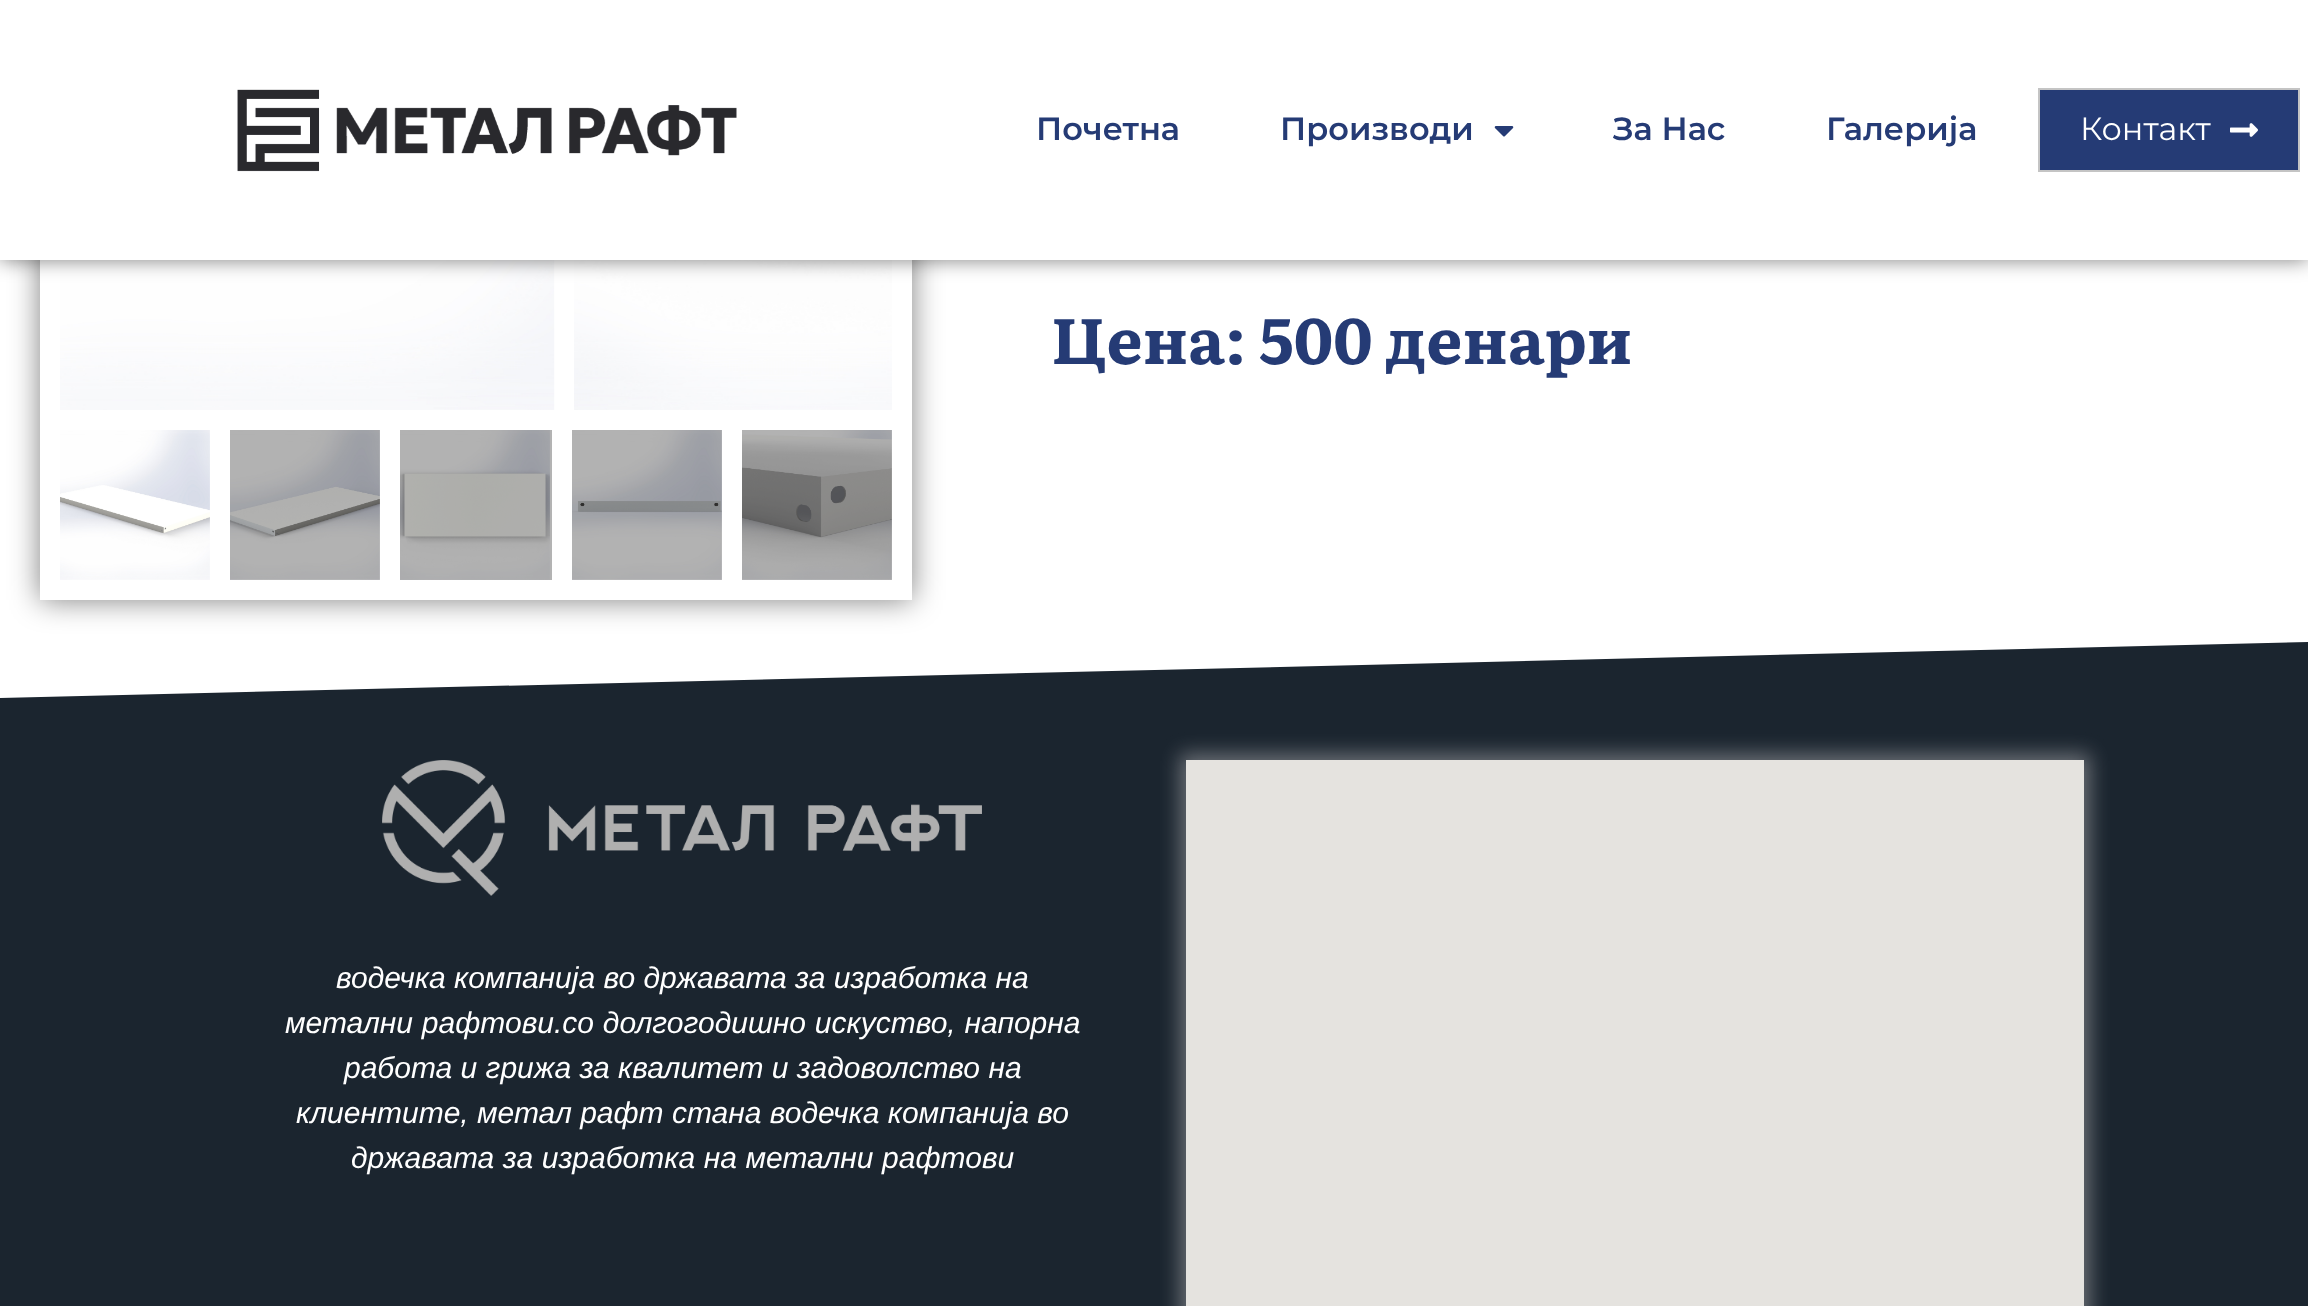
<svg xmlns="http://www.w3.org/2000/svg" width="2308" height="1306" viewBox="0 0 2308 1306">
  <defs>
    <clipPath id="clip1"><path d="M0 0H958V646H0ZM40-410H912V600H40Z" clip-rule="evenodd"/></clipPath>
  </defs>
  <rect width="100%" height="100%" fill="#fff"/>
  <path d="M400 430h152v150H400z" fill="#b3b3b3"/>
  <g clip-path="url(#clip1)">
    <path d="M40 -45h872v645H40z" fill="#00000080" filter="blur(15px)"/>
  </g>
  <image x="60" y="260" width="495" height="150" href="img/4.png"/>
  <image x="574" y="260" width="318" height="150" href="img/5.png"/>
  <path d="M0 0h2308v260H0z" fill="#00000080" filter="blur(10px)"/>
  <path d="M0 0h2308v260H0z" fill="#fff"/>
  <image x="237" y="89" width="500" height="83" href="img/1.png"/>
  <image x="1494" y="126" width="20" height="11" href="img/2.png"/>
  <path d="M2039 89h260v82H2039z" fill="#253b75" stroke="#c4c4c4" stroke-width="2"/>
  <image x="2230" y="123" width="28" height="14" href="img/3.png"/>
  <image x="60" y="430" width="150" height="150" href="img/6.png"/>
  <image x="230" y="430" width="150" height="150" href="img/7.png"/>
  <image x="400" y="430" width="150" height="150" href="img/8.png"/>
  <image x="572" y="430" width="150" height="150" href="img/9.png"/>
  <image x="742" y="430" width="150" height="150" href="img/10.png"/>
  <path d="M0 642h2308v664H0z" fill="#1b252f"/>
  <path d="M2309 642V638H-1V698Z" fill="#fff"/>
  <image x="382" y="760" width="600" height="136" href="img/11.png"/>
  <path d="M1180 754h910v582H1180z" fill="#f8f2f15e" filter="blur(10px)"/>
  <path d="M1186 760h898v546H1186z" fill="#e5e3df"/>
  <g font-family="Montserrat" font-size="32" font-weight="600" fill="#253b75">
    <text x="1036" y="140">Почетна</text>
    <text x="1280" y="140">Производи</text>
    <text x="1613" y="140">За Нас</text>
    <text x="1826" y="140">Галерија</text>
  </g>
  <text x="2080" y="140" font-family="Montserrat" font-size="32" fill="#fff">Контакт</text>
  <text x="1051" y="364" font-family="Literata" font-size="64" font-weight="bold" fill="#253b75">Цена: 500 денари</text>
  <g font-family="Liberation Sans" font-size="30" font-style="italic" fill="#fff">
    <text x="336" y="988">водечка компанија во државата за изработка на</text>
    <text x="285" y="1033" word-spacing="0.5">метални рафтови.со долгогодишно искуство, напорна</text>
    <text x="344" y="1078">работа и грижа за квалитет и задоволство на</text>
    <text x="296" y="1123">клиентите, метал рафт стана водечка компанија во</text>
    <text x="351" y="1168" word-spacing="0.25">државата за изработка на метални рафтови</text>
  </g>
</svg>
